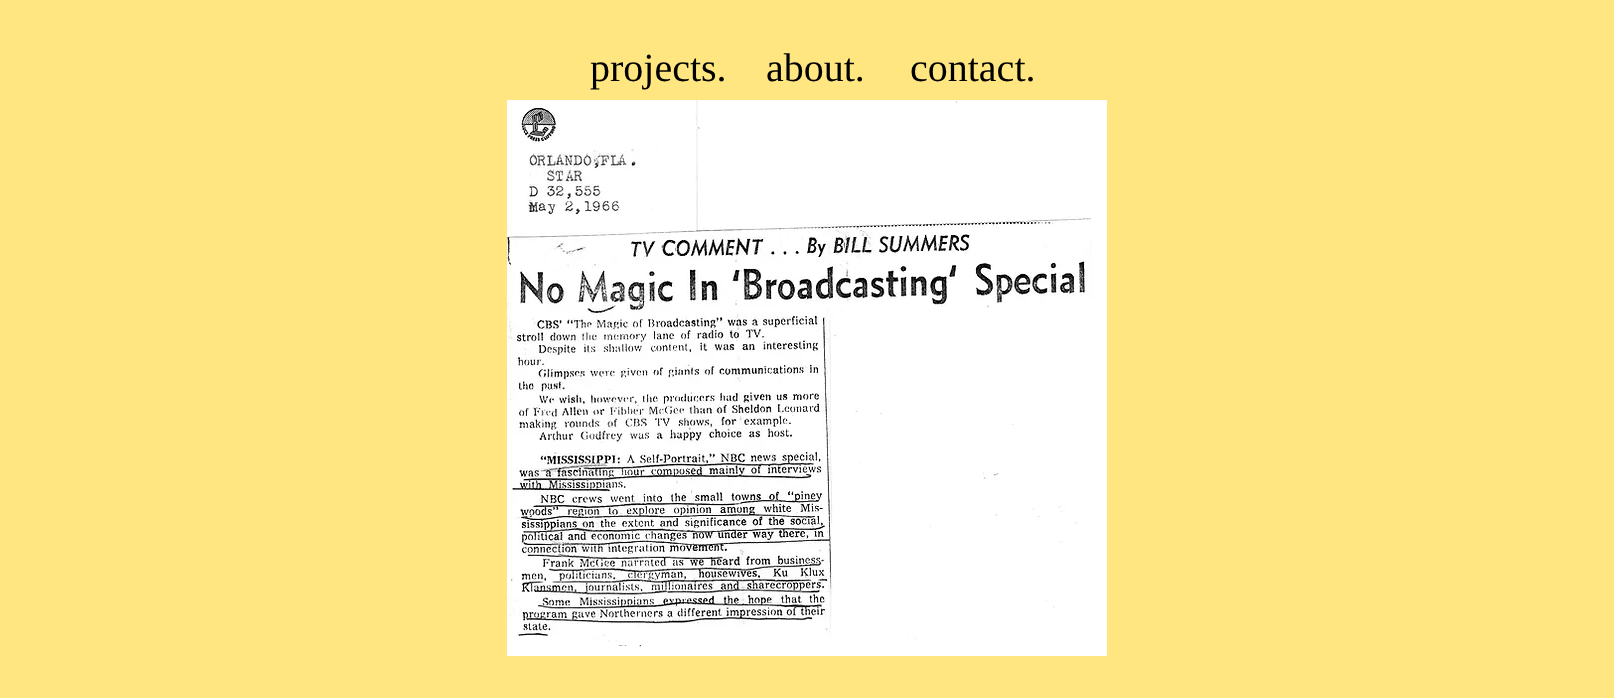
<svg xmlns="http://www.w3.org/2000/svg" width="1614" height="698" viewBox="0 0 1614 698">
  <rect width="100%" height="100%" fill="#ffe680"/>
  <image x="507" y="100" width="600" height="556" href="img/1.png"/>
  <g font-family="Liberation Serif" font-size="40" fill="#000">
    <text x="590" y="81">projects.</text>
    <text x="766" y="81">about.</text>
    <text x="910" y="81">contact.</text>
  </g>
</svg>
